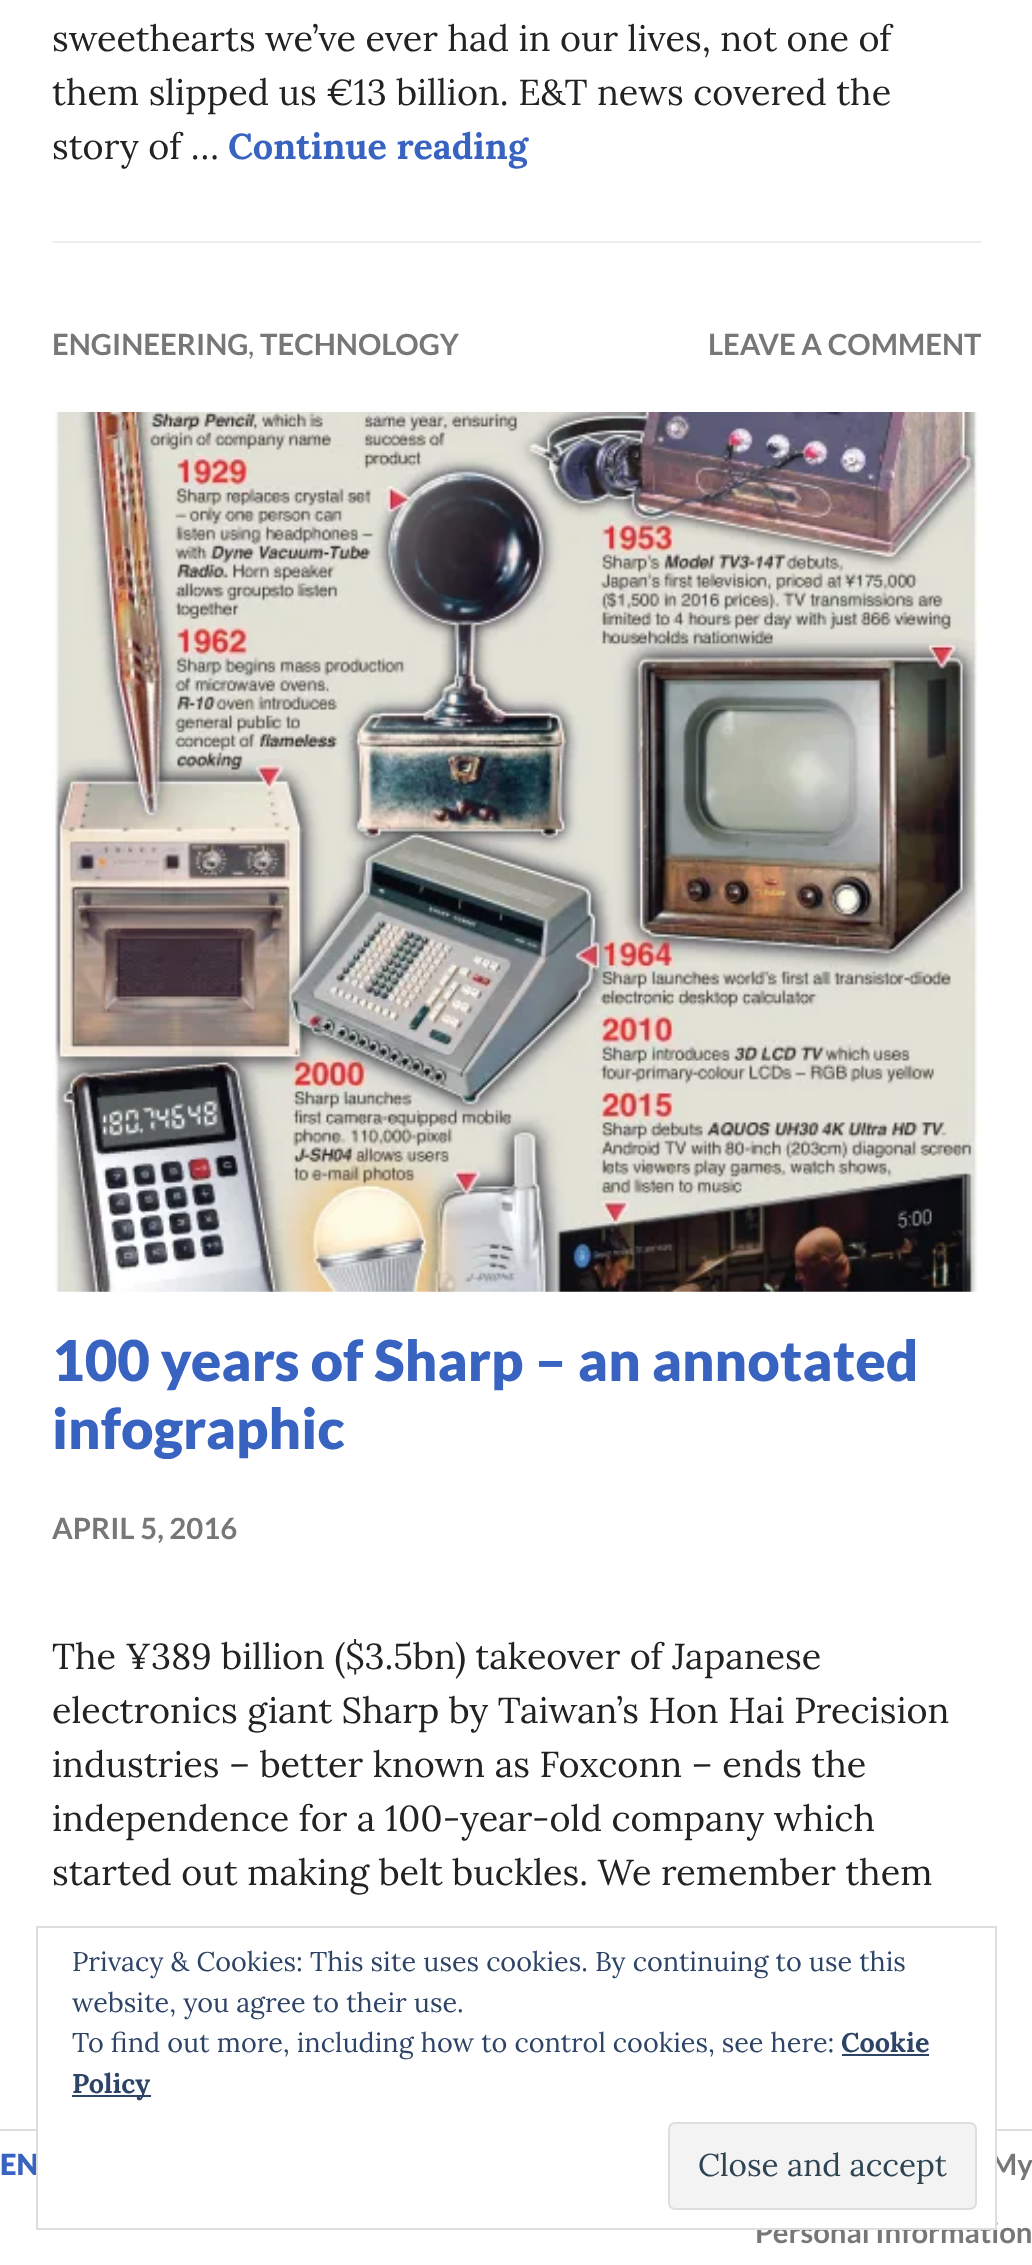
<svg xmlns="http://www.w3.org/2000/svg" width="1032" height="2265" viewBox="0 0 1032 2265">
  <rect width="100%" height="100%" fill="#fff"/>
  <path d="M52 241h929v2H52z" fill="#eee"/>
  <image x="52" y="412" width="929" height="880" href="img/1.png"/>
  <path d="M0 2129h1032v2H0z" fill="#ddd"/>
  <g font-family="Lora" font-size="36" fill="#222">
    <text x="52" y="51">sweethearts we’ve ever had in our lives, not one of</text>
    <text x="52" y="105">them slipped us €13 billion. E&amp;T news covered the</text>
    <text x="52" y="159">story of …</text>
  </g>
  <text x="228" y="159" font-family="Lora" font-size="36" font-weight="bold" fill="#3863c1">Continue reading</text>
  <text x="52" y="355" font-family="Lato" font-size="29.25" font-weight="bold" fill="#777">ENGINEERING</text>
  <text x="248" y="355" font-family="Lato" font-size="29.25" fill="#777">,</text>
  <g font-family="Lato" font-size="29.25" font-weight="bold" fill="#777">
    <text x="260" y="355">TECHNOLOGY</text>
    <text x="708" y="355">LEAVE A COMMENT</text>
  </g>
  <g font-family="Lato" font-size="56.25" font-weight="900" fill="#3863c1">
    <text x="52" y="1381">100 years of Sharp – an annotated</text>
    <text x="52" y="1449">infographic</text>
  </g>
  <text x="52" y="1539" font-family="Lato" font-size="29.25" font-weight="bold" fill="#777">APRIL 5, 2016</text>
  <g font-family="Lora" font-size="36" fill="#222">
    <text x="52" y="1669">The ¥389 billion ($3.5bn) takeover of Japanese</text>
    <text x="52" y="1723">electronics giant Sharp by Taiwan’s Hon Hai Precision</text>
    <text x="52" y="1777">industries – better known as Foxconn – ends the</text>
    <text x="52" y="1831">independence for a 100-year-old company which</text>
    <text x="52" y="1885">started out making belt buckles. We remember them</text>
  </g>
  <text x="0" y="2175" font-family="Lato" font-size="29.25" font-weight="900" fill="#3863c1">EN</text>
  <g font-family="Lato" font-size="29.25" font-weight="bold" fill="#777">
    <text x="990" y="2175">My</text>
    <text x="755" y="2243">Personal Information</text>
  </g>
  <path d="M38 2129h957v99H38z" fill="#fff"/>
  <path d="M37 1927h959v302H37z" fill="none" stroke="#dedede" stroke-width="2"/>
  <rect x="669" y="2123" width="307" height="86" rx="6" fill="#f3f3f3" stroke="#dedede" stroke-width="2"/>
  <text x="698" y="2176" font-family="Lora" font-size="31.5" fill="#2e4453">Close and accept</text>
  <path d="M72 2095h79v2H72z" fill="#2e4467"/>
  <g font-family="Lora" font-size="27" font-weight="bold" fill="#2e4467">
    <text x="72" y="2093">Policy</text>
    <text x="841" y="2052">Cookie</text>
  </g>
  <path d="M842 2054h87v2H842z" fill="#2e4467"/>
  <g font-family="Lora" font-size="27" fill="#2e4467">
    <text x="72" y="2052">To find out more, including how to control cookies, see here:</text>
    <text x="72" y="2012">website, you agree to their use.</text>
    <text x="72" y="1971">Privacy &amp; Cookies: This site uses cookies. By continuing to use this</text>
  </g>
</svg>
